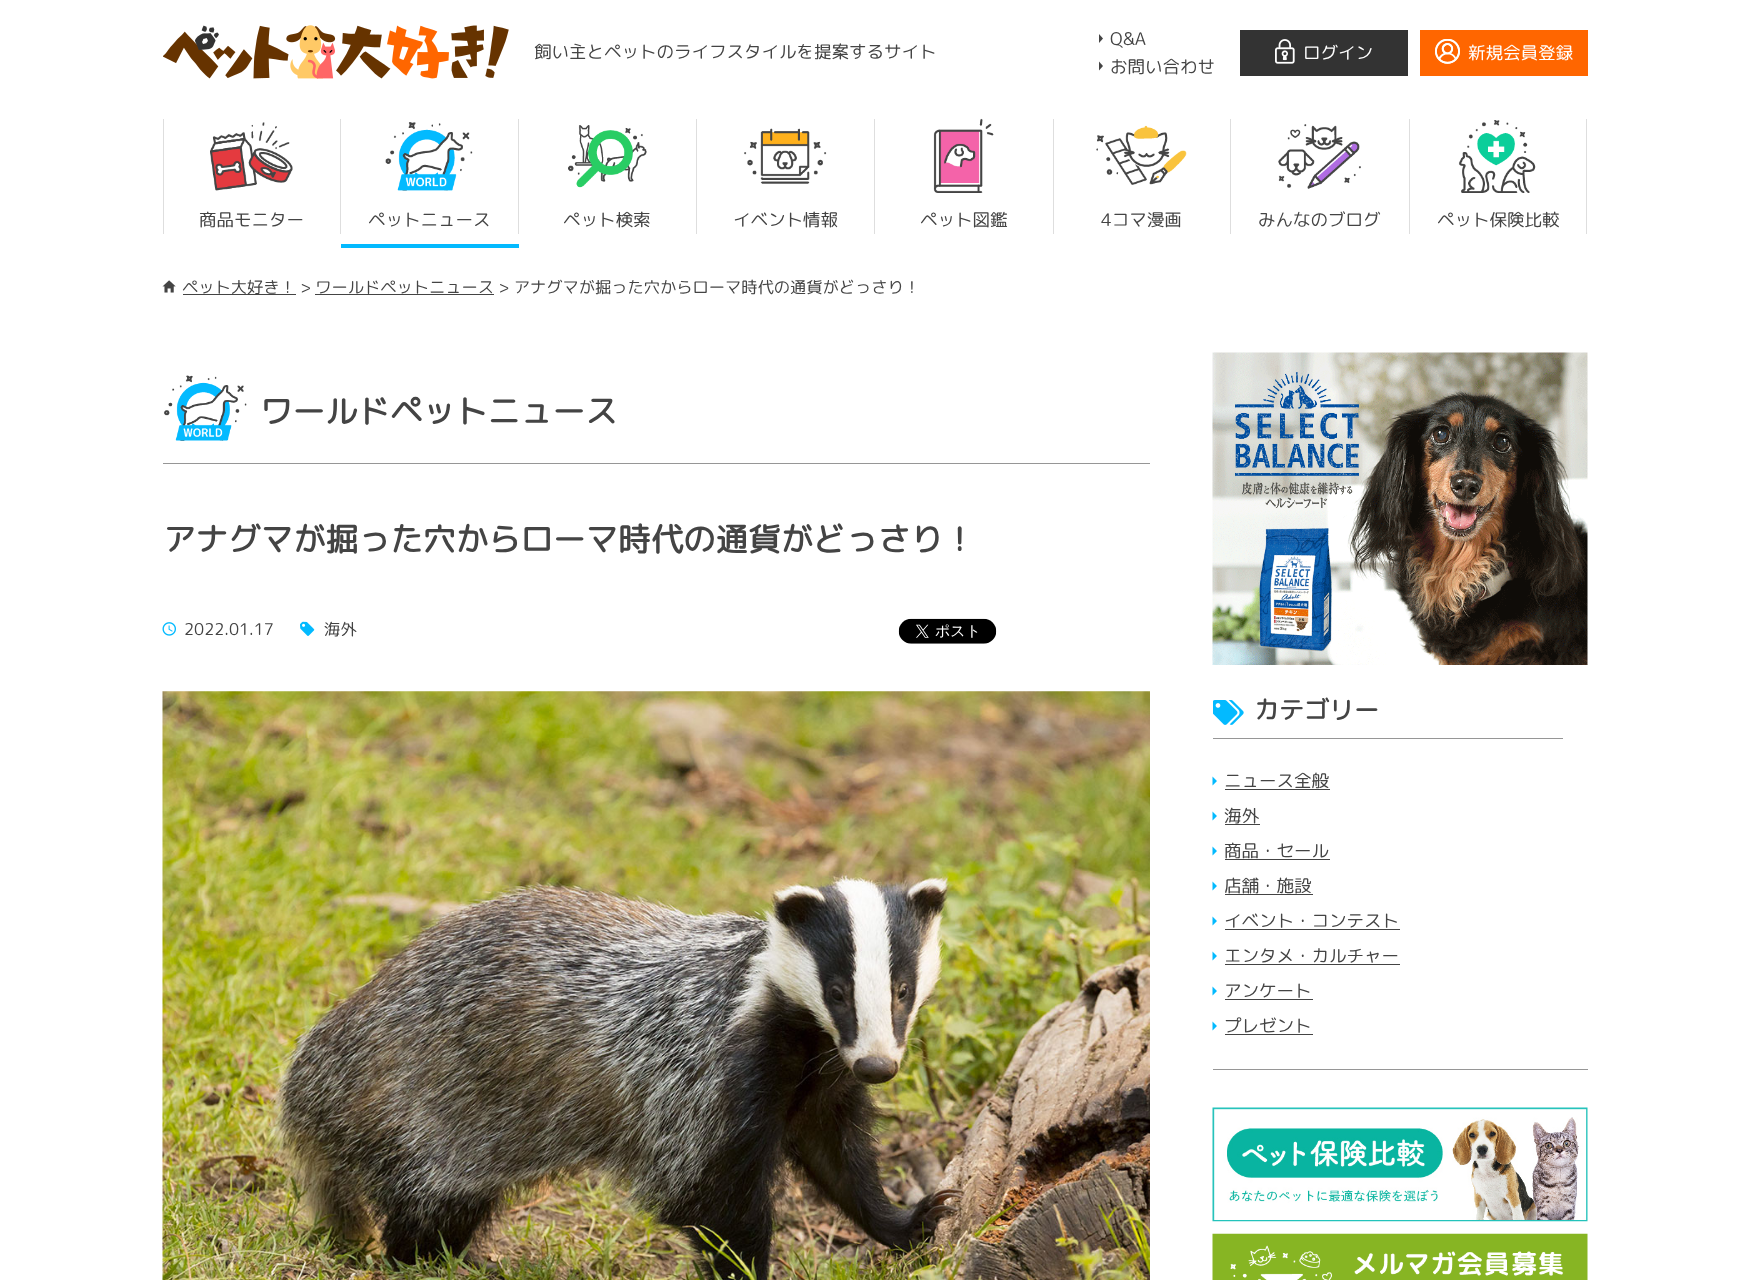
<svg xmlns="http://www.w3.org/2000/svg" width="1749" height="1280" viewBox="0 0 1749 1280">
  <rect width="100%" height="100%" fill="#fff"/>
  <image x="163" y="25" width="346" height="54" href="img/1.png"/>
  <path d="M1099 34L1103 38.5L1099 43Z" fill="#444"/>
  <path d="M1099 61.5L1103 66L1099 70.5Z" fill="#444"/>
  <path d="M1240 30h168v46H1240z" fill="#333"/>
  <image x="1275" y="39" width="20" height="25" href="img/2.png"/>
  <path d="M1420 30h168v46H1420z" fill="#f60"/>
  <image x="1435" y="39" width="25" height="25" href="img/3.png"/>
  <path d="M340 119h1v115H340z" fill="#dedede"/>
  <path d="M163 119h1v115H163z" fill="#dedede"/>
  <image x="210" y="122" width="83" height="69" href="img/4.png"/>
  <path d="M341 244h178v4H341z" fill="#03baff"/>
  <path d="M518 119h1v115H518z" fill="#dedede"/>
  <image x="385" y="122" width="88" height="69" href="img/5.png"/>
  <path d="M696 119h1v115H696z" fill="#dedede"/>
  <image x="568" y="125" width="79" height="63" href="img/6.png"/>
  <path d="M874 119h1v115H874z" fill="#dedede"/>
  <image x="744" y="128" width="83" height="56" href="img/7.png"/>
  <path d="M1053 119h1v115H1053z" fill="#dedede"/>
  <image x="933" y="118" width="61" height="75" href="img/8.png"/>
  <path d="M1230 119h1v115H1230z" fill="#dedede"/>
  <image x="1096" y="125" width="91" height="60" href="img/9.png"/>
  <path d="M1409 119h1v115H1409z" fill="#dedede"/>
  <image x="1278" y="124" width="83" height="65" href="img/10.png"/>
  <path d="M1586 119h1v115H1586z" fill="#dedede"/>
  <image x="1458" y="120" width="78" height="73" href="img/11.png"/>
  <image x="162" y="280" width="14" height="13" href="img/12.png"/>
  <path d="M183 294h113v1H183z" fill="#444"/>
  <path d="M315 294h179v1H315z" fill="#444"/>
  <path d="M163 463h987v1H163z" fill="#969696"/>
  <image x="163" y="375" width="84" height="66" href="img/13.png"/>
  <image x="162" y="622" width="14" height="14" href="img/14.png"/>
  <image x="300" y="621" width="15" height="15" href="img/15.png"/>
  <image x="898" y="618" width="99" height="26" href="img/16.png"/>
  <image x="162" y="691" width="988" height="589" href="img/17.png"/>
  <image x="1212" y="352" width="376" height="313" href="img/18.png"/>
  <path d="M1213 1069h375v1H1213z" fill="#969696"/>
  <path d="M1213 738h350v1H1213z" fill="#969696"/>
  <image x="1213" y="700" width="31" height="25" href="img/19.png"/>
  <path d="M1212.5 776.5L1217 781L1212.5 785.5ZM1212.5 811.5L1217 816L1212.5 820.5Z" fill="#03baff"/>
  <path d="M1225 789h105v1H1225z" fill="#444"/>
  <path d="M1225 824h35v1H1225z" fill="#444"/>
  <path d="M1212.5 846.5L1217 851L1212.5 855.5ZM1212.5 881.5L1217 886L1212.5 890.5Z" fill="#03baff"/>
  <path d="M1225 859h105v1H1225z" fill="#444"/>
  <path d="M1225 894h88v1H1225z" fill="#444"/>
  <path d="M1212.5 916.5L1217 921L1212.5 925.5ZM1212.5 951.5L1217 956L1212.5 960.5Z" fill="#03baff"/>
  <path d="M1225 929h175v1H1225z" fill="#444"/>
  <path d="M1225 964h175v1H1225z" fill="#444"/>
  <path d="M1212.5 986.5L1217 991L1212.5 995.5ZM1212.5 1021.5L1217 1026L1212.5 1030.5Z" fill="#03baff"/>
  <path d="M1225 999h88v1H1225z" fill="#444"/>
  <path d="M1225 1034h88v1H1225z" fill="#444"/>
  <image x="1212" y="1107" width="376" height="115" href="img/20.png"/>
  <image x="1212" y="1233" width="376" height="47" href="img/21.png"/>
  <g font-family="'Rounded Mplus 1c'" font-size="17.5" fill="#444">
    <text x="534" y="58">飼い主とペットのライフスタイルを提案するサイト</text>
    <text x="1110" y="45">Q&amp;A</text>
    <text x="1110" y="73">お問い合わせ</text>
  </g>
  <g font-family="'Rounded Mplus 1c'" font-size="17.5" fill="#fff">
    <text x="1303" y="59">ログイン</text>
    <text x="1468" y="59">新規会員登録</text>
  </g>
  <g font-family="'Rounded Mplus 1c'" font-size="17.5" fill="#444">
    <text x="199" y="226">商品モニター</text>
    <text x="368" y="226">ペットニュース</text>
    <text x="563" y="226">ペット検索</text>
    <text x="733" y="226">イベント情報</text>
    <text x="920" y="226">ペット図鑑</text>
    <text x="1101" y="226">4コマ漫画</text>
    <text x="1258" y="226">みんなのブログ</text>
    <text x="1437" y="226">ペット保険比較</text>
  </g>
  <text x="182" y="293" font-family="'Rounded Mplus 1c'" font-size="16.25" fill="#444">ペット大好き！ &gt; ワールドペットニュース &gt; アナグマが掘った穴からローマ時代の通貨がどっさり！</text>
  <g font-family="'Rounded Mplus 1c'" font-size="32.5" font-weight="bold" fill="#444">
    <text x="260" y="423">ワールドペットニュース</text>
    <text x="163" y="551">アナグマが掘った穴からローマ時代の通貨がどっさり！</text>
  </g>
  <g font-family="'Rounded Mplus 1c'" font-size="16.25" fill="#444">
    <text x="184" y="635">2022.01.17</text>
    <text x="324" y="635">海外</text>
  </g>
  <text x="1254" y="719" font-family="'Rounded Mplus 1c'" font-size="25" font-weight="bold" fill="#444">カテゴリー</text>
  <g font-family="'Rounded Mplus 1c'" font-size="17.5" fill="#444">
    <text x="1224" y="787">ニュース全般</text>
    <text x="1224" y="822">海外</text>
    <text x="1224" y="857">商品・セール</text>
    <text x="1224" y="892">店舗・施設</text>
    <text x="1224" y="927">イベント・コンテスト</text>
    <text x="1224" y="962">エンタメ・カルチャー</text>
    <text x="1224" y="997">アンケート</text>
    <text x="1224" y="1032">プレゼント</text>
  </g>
</svg>
